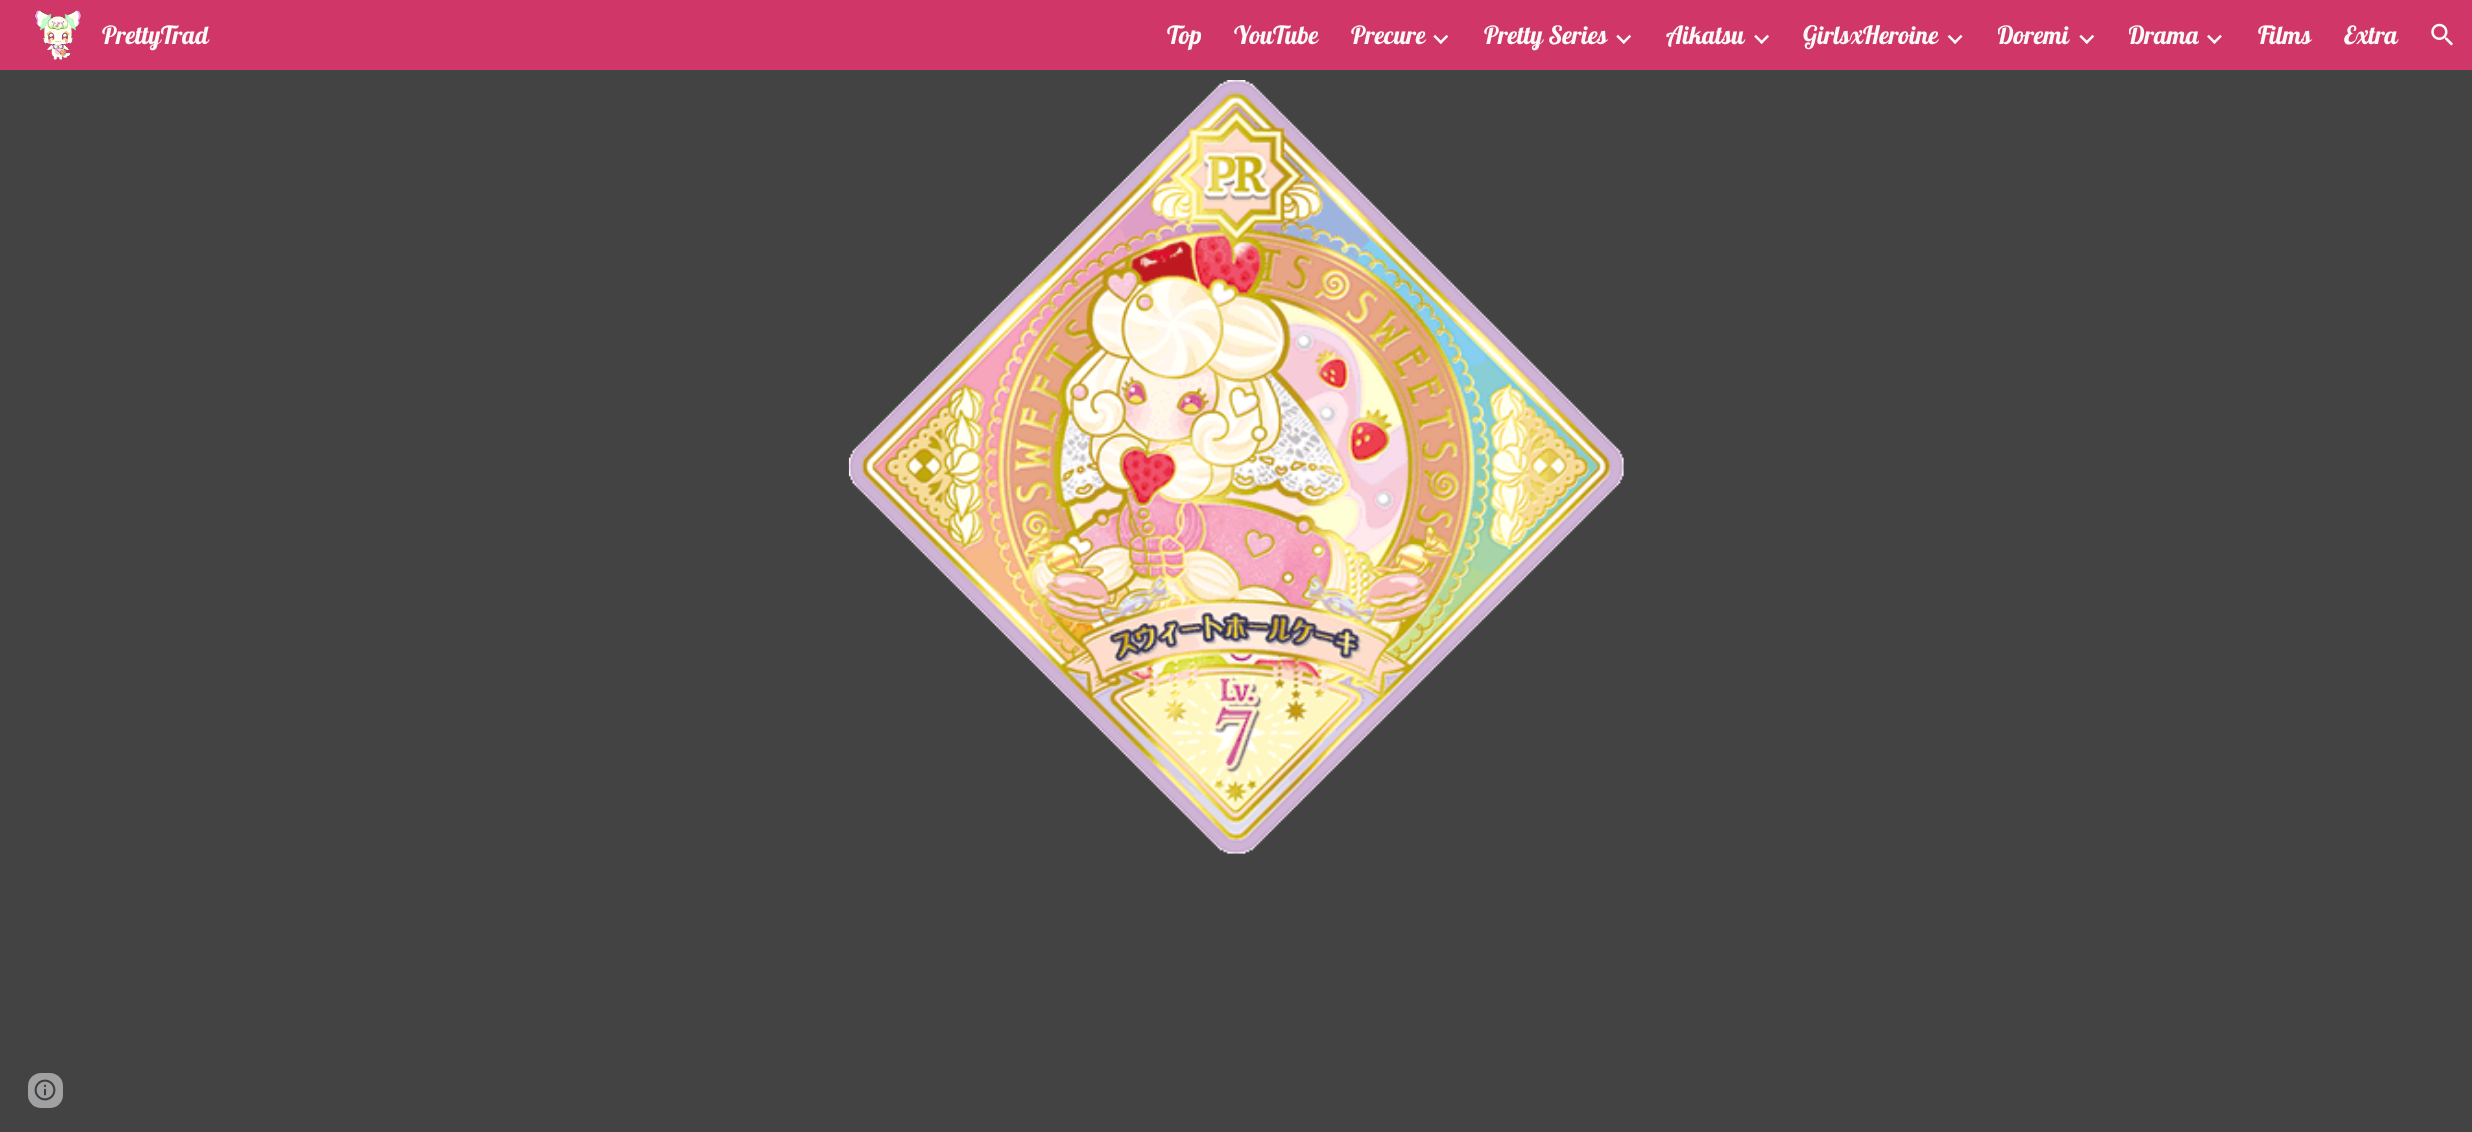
<svg xmlns="http://www.w3.org/2000/svg" width="2472" height="1132" viewBox="0 0 2472 1132">
  <style>*{font-kerning:none!important;font-variant-ligatures:none!important}</style>
  <defs>
    <clipPath id="clip1"><path d="M1998 20h72v31H1998z"/></clipPath>
    <clipPath id="clip2"><path d="M2129 20h70v31H2129z"/></clipPath>
  </defs>
  <rect width="100%" height="100%" fill="#434343"/>
  <path d="M0 0h2472v70H0z" fill="#d03667"/>
  <image x="34" y="10" width="48" height="50" href="img/1.png"/>
  <image x="1433" y="34" width="16" height="10" href="img/2.png"/>
  <image x="1616" y="34" width="16" height="10" href="img/3.png"/>
  <image x="1754" y="34" width="15" height="10" href="img/4.png"/>
  <image x="1947" y="34" width="16" height="10" href="img/5.png"/>
  <image x="2079" y="34" width="16" height="10" href="img/6.png"/>
  <image x="2207" y="34" width="15" height="10" href="img/7.png"/>
  <image x="2431" y="23" width="22" height="23" href="img/8.png"/>
  <image x="848" y="80" width="776" height="774" href="img/9.png"/>
  <rect x="28" y="1073" width="35" height="35" rx="13" fill="#a1a1a1"/>
  <image x="34" y="1079" width="22" height="22" href="img/10.png"/>
  <g font-family="Lobster" font-size="25" fill="#f9f9f9">
    <text x="102" y="44">PrettyTrad</text>
    <text x="1167" y="44">Top</text>
    <text x="1234" y="44">YouTube</text>
    <text x="1351" y="44">Precure</text>
    <text x="1484" y="44">Pretty Series</text>
    <text x="1666" y="44">Aikatsu</text>
    <text x="1803" y="44">GirlsxHeroine</text>
  </g>
  <g clip-path="url(#clip1)">
    <text x="1997" y="44" font-family="Lobster" font-size="25" fill="#f9f9f9">Doremi</text>
  </g>
  <g clip-path="url(#clip2)">
    <text x="2128" y="44" font-family="Lobster" font-size="25" fill="#f9f9f9">Drama</text>
  </g>
  <g font-family="Lobster" font-size="25" fill="#f9f9f9">
    <text x="2258" y="44">Films</text>
    <text x="2344" y="44">Extra</text>
  </g>
</svg>
